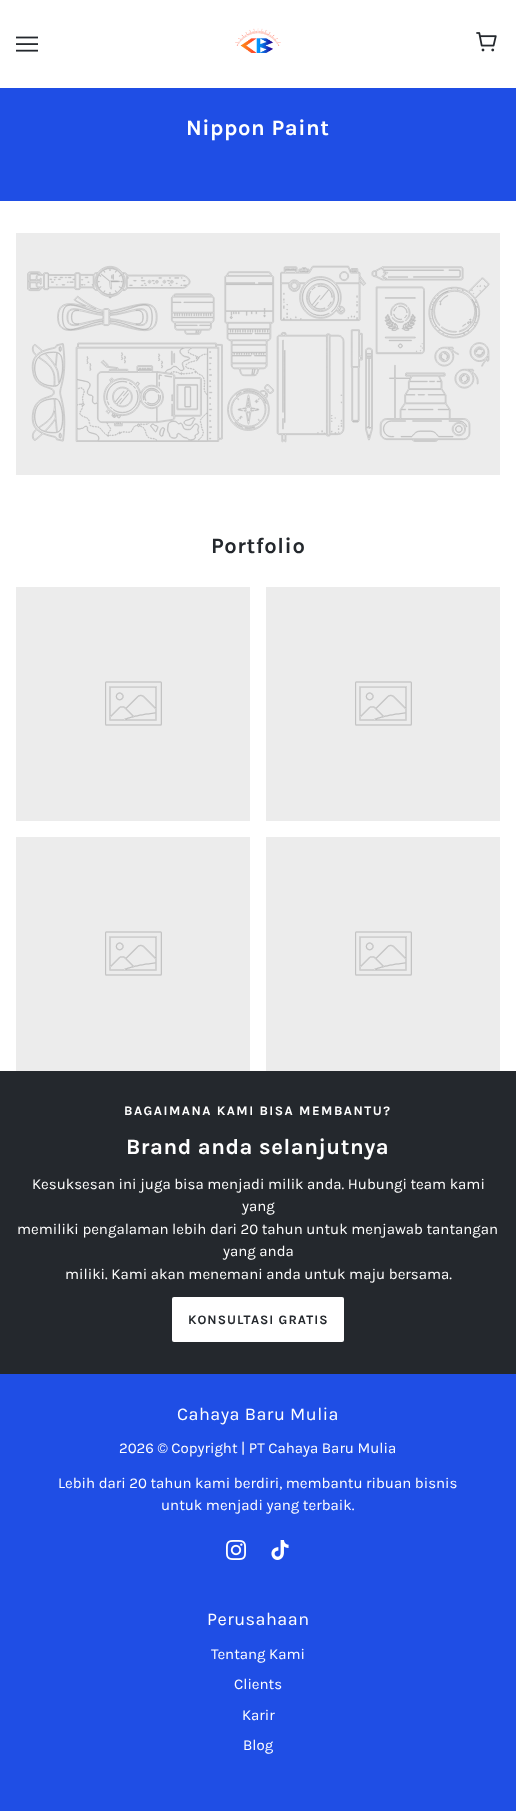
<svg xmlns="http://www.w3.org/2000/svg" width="516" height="1811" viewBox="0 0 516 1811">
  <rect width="100%" height="100%" fill="#fff"/>
  <image x="16" y="36" width="22" height="16" href="img/1.png"/>
  <image x="235" y="28" width="46" height="25" href="img/2.png"/>
  <image x="476" y="32" width="21" height="20" href="img/3.png"/>
  <path d="M0 88h516v113H0z" fill="#1f4ee5"/>
  <path d="M16 233h484v242H16z" fill="#ececec"/>
  <image x="27" y="265" width="463" height="178" href="img/4.png"/>
  <path d="M16 587h234v234H16z" fill="#ececec"/>
  <image x="105" y="681" width="57" height="45" href="img/5.png"/>
  <path d="M266 587h234v234H266z" fill="#ececec"/>
  <image x="355" y="681" width="57" height="45" href="img/5.png"/>
  <path d="M16 837h234v234H16z" fill="#ececec"/>
  <image x="105" y="931" width="57" height="45" href="img/5.png"/>
  <path d="M266 837h234v234H266z" fill="#ececec"/>
  <image x="355" y="931" width="57" height="45" href="img/5.png"/>
  <path d="M0 1071h516v303H0z" fill="#24282d"/>
  <rect x="172" y="1297" width="172" height="45" rx="2" fill="#fff"/>
  <path d="M0 1374h516v437H0z" fill="#1f4ee5"/>
  <image x="226" y="1540" width="20" height="20" href="img/6.png"/>
  <image x="271" y="1540" width="18" height="20" href="img/7.png"/>
  <text x="186" y="135" font-family="Karla" font-size="22" font-weight="bold" letter-spacing="0.55" fill="#fff">Nippon Paint</text>
  <text x="211" y="553" font-family="Karla" font-size="22" font-weight="bold" letter-spacing="0.55" fill="#24282d">Portfolio</text>
  <text x="124" y="1115" font-family="Karla" font-size="13" font-weight="bold" letter-spacing="1.5" fill="#fff">BAGAIMANA KAMI BISA MEMBANTU?</text>
  <text x="126" y="1154" font-family="Karla" font-size="22" font-weight="bold" letter-spacing="0.55" fill="#fff">Brand anda selanjutnya</text>
  <g font-family="Karla" font-size="15" fill="#fff">
    <text x="32" y="1189">Kesuksesan ini juga bisa menjadi milik anda. Hubungi team kami</text>
    <text x="242" y="1211">yang</text>
    <text x="17" y="1234">memiliki pengalaman lebih dari 20 tahun untuk menjawab tantangan</text>
    <text x="223" y="1256">yang anda</text>
    <text x="65" y="1279">miliki. Kami akan menemani anda untuk maju bersama.</text>
  </g>
  <text x="188" y="1324" font-family="Karla" font-size="13" font-weight="bold" letter-spacing="1" fill="#24282d">KONSULTASI GRATIS</text>
  <text x="177" y="1420" font-family="Karla" font-size="18" letter-spacing="0.5" fill="#fff">Cahaya Baru Mulia</text>
  <g font-family="Karla" font-size="15" fill="#fff">
    <text x="119" y="1453">2026 © Copyright | PT Cahaya Baru Mulia</text>
    <text x="58" y="1488">Lebih dari 20 tahun kami berdiri, membantu ribuan bisnis</text>
    <text x="161" y="1510">untuk menjadi yang terbaik.</text>
  </g>
  <text x="207" y="1625" font-family="Karla" font-size="18" letter-spacing="0.5" fill="#fff">Perusahaan</text>
  <g font-family="Karla" font-size="15" fill="#fff">
    <text x="211" y="1659">Tentang Kami</text>
    <text x="234" y="1689">Clients</text>
    <text x="242" y="1720">Karir</text>
    <text x="243" y="1750">Blog</text>
  </g>
</svg>
